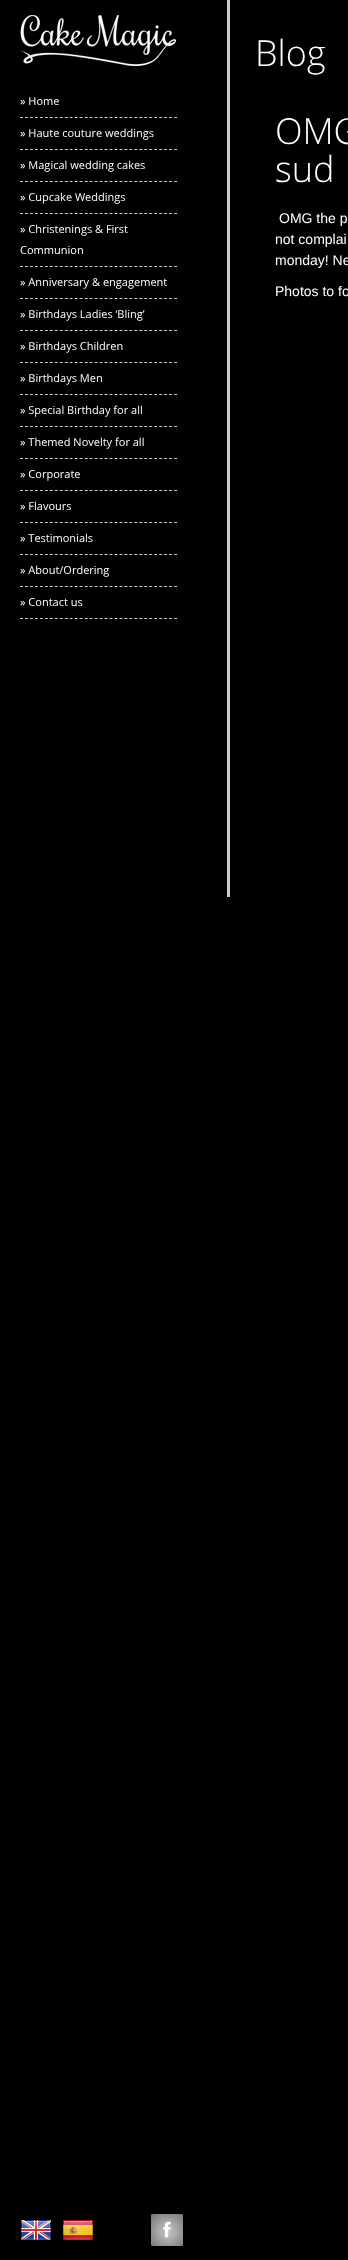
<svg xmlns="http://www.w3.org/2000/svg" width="348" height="2260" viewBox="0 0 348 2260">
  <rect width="100%" height="100%" fill="#000"/>
  <path d="M227 0h3v897H227z" fill="#ccc"/>
  <image x="20" y="15" width="156" height="51" href="img/1.png"/>
  <path d="M20 117.5H177" fill="none" stroke="#ccc" stroke-dasharray="3 1.97"/>
  <path d="M20 149.5H177" fill="none" stroke="#ccc" stroke-dasharray="3 1.97"/>
  <path d="M20 181.5H177" fill="none" stroke="#ccc" stroke-dasharray="3 1.97"/>
  <path d="M20 213.5H177" fill="none" stroke="#ccc" stroke-dasharray="3 1.97"/>
  <path d="M20 266.5H177" fill="none" stroke="#ccc" stroke-dasharray="3 1.97"/>
  <path d="M20 298.5H177" fill="none" stroke="#ccc" stroke-dasharray="3 1.97"/>
  <path d="M20 330.5H177" fill="none" stroke="#ccc" stroke-dasharray="3 1.97"/>
  <path d="M20 362.5H177" fill="none" stroke="#ccc" stroke-dasharray="3 1.97"/>
  <path d="M20 394.5H177" fill="none" stroke="#ccc" stroke-dasharray="3 1.97"/>
  <path d="M20 426.5H177" fill="none" stroke="#ccc" stroke-dasharray="3 1.97"/>
  <path d="M20 458.5H177" fill="none" stroke="#ccc" stroke-dasharray="3 1.97"/>
  <path d="M20 490.5H177" fill="none" stroke="#ccc" stroke-dasharray="3 1.97"/>
  <path d="M20 522.5H177" fill="none" stroke="#ccc" stroke-dasharray="3 1.97"/>
  <path d="M20 554.5H177" fill="none" stroke="#ccc" stroke-dasharray="3 1.97"/>
  <path d="M20 586.5H177" fill="none" stroke="#ccc" stroke-dasharray="3 1.97"/>
  <path d="M20 618.5H177" fill="none" stroke="#ccc" stroke-dasharray="3 1.97"/>
  <image x="21" y="2220" width="30" height="20" href="img/2.png"/>
  <image x="63" y="2220" width="30" height="20" href="img/3.png"/>
  <image x="151" y="2214" width="32" height="32" href="img/4.png"/>
  <g font-family="Open Sans" font-size="11" fill="#fff">
    <text x="20" y="105">» Home</text>
    <text x="20" y="137">» Haute couture weddings</text>
    <text x="20" y="169">» Magical wedding cakes</text>
    <text x="20" y="201">» Cupcake Weddings</text>
    <text x="20" y="233">» Christenings &amp; First</text>
    <text x="20" y="254">Communion</text>
    <text x="20" y="286">» Anniversary &amp; engagement</text>
    <text x="20" y="318">» Birthdays Ladies ‘Bling’</text>
    <text x="20" y="350">» Birthdays Children</text>
    <text x="20" y="382">» Birthdays Men</text>
    <text x="20" y="414">» Special Birthday for all</text>
    <text x="20" y="446">» Themed Novelty for all</text>
    <text x="20" y="478">» Corporate</text>
    <text x="20" y="510">» Flavours</text>
    <text x="20" y="542">» Testimonials</text>
    <text x="20" y="574">» About/Ordering</text>
    <text x="20" y="606">» Contact us</text>
  </g>
  <g font-family="Open Sans" font-size="36" font-weight="300" fill="#fff">
    <text x="255" y="66">Blog</text>
    <text x="275" y="144">OMG</text>
    <text x="275" y="182">sud</text>
  </g>
  <g font-family="Liberation Sans" font-size="14" fill="#fff">
    <text x="279" y="223">OMG the p</text>
    <text x="275" y="244">not complai</text>
    <text x="275" y="265">monday! Ne</text>
    <text x="275" y="296">Photos to fo</text>
  </g>
</svg>
